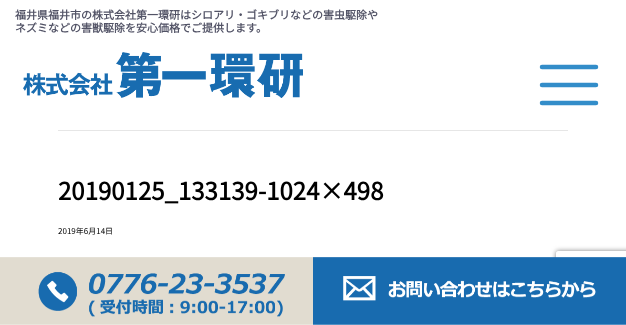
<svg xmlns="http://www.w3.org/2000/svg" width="626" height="325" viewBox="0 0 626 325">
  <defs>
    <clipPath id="clip1"><path d="M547 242H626V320H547ZM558 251H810C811 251 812 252 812 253V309C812 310 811 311 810 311H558C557 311 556 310 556 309V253C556 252 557 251 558 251Z" clip-rule="evenodd"/></clipPath>
  </defs>
  <rect width="100%" height="100%" fill="#fff"/>
  <image x="23" y="52" width="280" height="46" href="img/1.png"/>
  <path d="M542 67H596M542 85H596M542 103H596" fill="none" stroke="#338dc9" stroke-width="4.5" stroke-linecap="round"/>
  <path d="M58 130h510v1H58z" fill="#e6e6e6"/>
  <g clip-path="url(#clip1)">
    <rect x="556" y="251" width="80" height="60" rx="2" fill="#808080" filter="blur(2.5px)"/>
  </g>
  <image x="0" y="257" width="313" height="68" href="img/2.png"/>
  <image x="313" y="257" width="313" height="68" href="img/3.png"/>
  <g font-family="Noto Sans JP" font-size="11" font-weight="bold" fill="#525366">
    <text x="15" y="19">福井県福井市の株式会社第一環研はシロアリ・ゴキブリなどの害虫駆除や</text>
    <text x="15" y="32">ネズミなどの害獣駆除を安心価格でご提供します。</text>
  </g>
  <text x="58" y="200" font-family="Noto Sans JP" font-size="24" font-weight="bold" fill="#000">20190125_133139-1024×498</text>
  <text x="58" y="234" font-family="Noto Sans JP" font-size="8" font-weight="100" fill="#000">2019年6月14日</text>
</svg>
